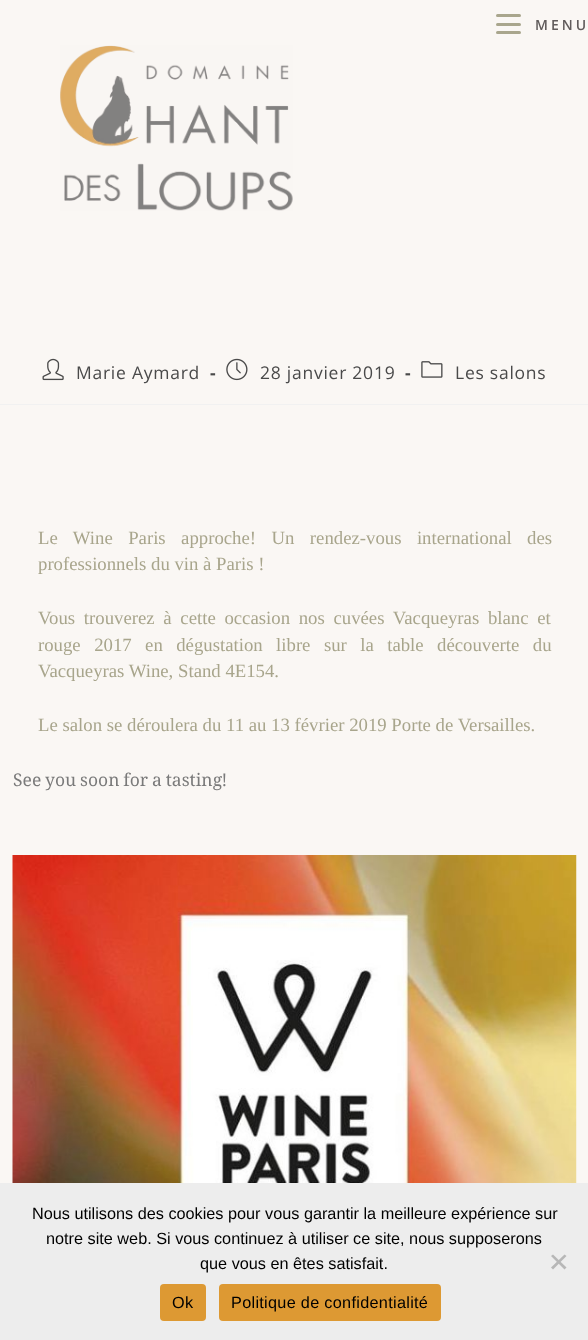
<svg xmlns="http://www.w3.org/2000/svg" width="588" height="1340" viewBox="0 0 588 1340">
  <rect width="100%" height="100%" fill="#faf7f4"/>
  <rect x="496" y="23" width="25" height="3" rx="1.5" fill="#a9a68d"/>
  <rect x="496" y="14" width="25" height="3" rx="1.5" fill="#a9a68d"/>
  <rect x="496" y="31" width="25" height="3" rx="1.5" fill="#a9a68d"/>
  <image x="60" y="45" width="233" height="166" href="img/1.png"/>
  <path d="M0 404h588v1H0z" fill="#f1f1f1"/>
  <image x="42" y="358" width="22" height="23" href="img/2.png"/>
  <image x="226" y="358" width="22" height="23" href="img/3.png"/>
  <image x="421" y="361" width="22" height="17" href="img/4.png"/>
  <image x="12" y="855" width="565" height="328" href="img/5.png"/>
  <path d="M0 1183h588v157H0z" fill="#ededed"/>
  <path d="M564.5 1254.5L566.5 1256L553 1269.5L551 1267.5Z" fill="#b7b7b7"/>
  <path d="M551 1256L553 1254.5L566.5 1267.5L564.5 1269.5Z" fill="#b7b7b7"/>
  <rect x="160" y="1284" width="46" height="37" rx="4" fill="#d93"/>
  <rect x="219" y="1284" width="222" height="37" rx="4" fill="#d93"/>
  <text x="535" y="30" font-family="Open Sans" font-size="14" font-weight="600" letter-spacing="3" fill="#615c5c">MENU</text>
  <text x="76" y="379" font-family="Open Sans" font-size="17.5" letter-spacing="0.75" fill="#4a4a4a">Marie Aymard</text>
  <text x="210" y="379" font-family="Open Sans" font-size="17.5" font-weight="bold" letter-spacing="0.75" fill="#4a4a4a">-</text>
  <text x="260" y="379" font-family="Open Sans" font-size="17.5" letter-spacing="0.75" fill="#4a4a4a">28 janvier 2019</text>
  <text x="405" y="379" font-family="Open Sans" font-size="17.5" font-weight="bold" letter-spacing="0.75" fill="#4a4a4a">-</text>
  <text x="455" y="379" font-family="Open Sans" font-size="17.5" letter-spacing="0.75" fill="#4a4a4a">Les salons</text>
  <g font-family="Liberation Serif" font-size="18.75" fill="#a8a58c">
    <text x="38" y="544" word-spacing="10.75">Le Wine Paris approche! Un rendez-vous international des</text>
    <text x="38" y="570">professionnels du vin à Paris !</text>
    <text x="38" y="624" word-spacing="4">Vous trouverez à cette occasion nos cuvées Vacqueyras blanc et</text>
    <text x="38" y="651" word-spacing="8.75">rouge 2017 en dégustation libre sur la table découverte du</text>
    <text x="38" y="677">Vacqueyras Wine, Stand 4E154.</text>
    <text x="38" y="731">Le salon se déroulera du 11 au 13 février 2019 Porte de Versailles.</text>
  </g>
  <text x="13" y="786" font-family="Noto Naskh Arabic" font-size="17.5" fill="#7a7a7a">See you soon for a tasting!</text>
  <g font-family="Liberation Sans" font-size="16.25" fill="#000">
    <text x="32" y="1219">Nous utilisons des cookies pour vous garantir la meilleure expérience sur</text>
    <text x="46" y="1244">notre site web. Si vous continuez à utiliser ce site, nous supposerons</text>
    <text x="200" y="1269">que vous en êtes satisfait.</text>
  </g>
  <g font-family="Liberation Sans" font-size="16.25" letter-spacing="0.3" fill="#000">
    <text x="172" y="1308">Ok</text>
    <text x="231" y="1308">Politique de confidentialité</text>
  </g>
</svg>
